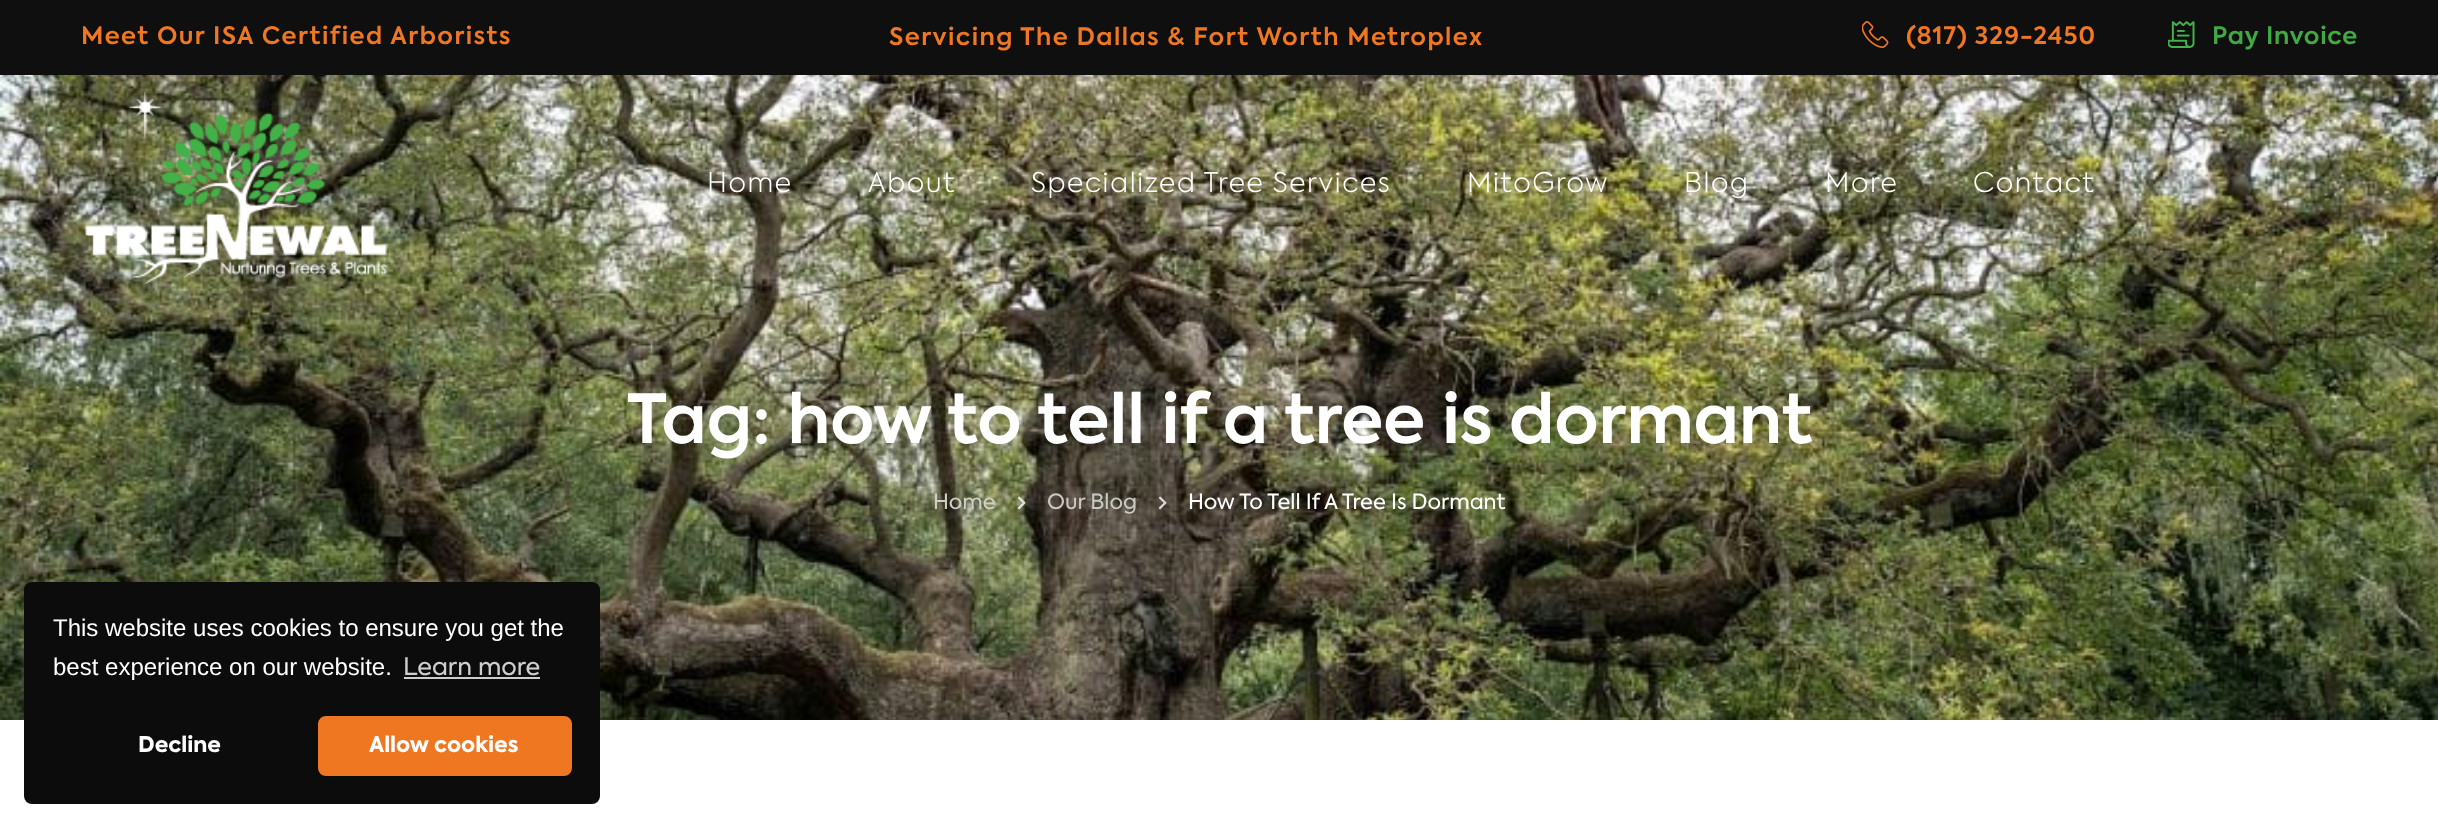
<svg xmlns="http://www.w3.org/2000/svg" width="2438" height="828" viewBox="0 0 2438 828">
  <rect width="100%" height="100%" fill="#fff"/>
  <path d="M0 0h2438v75H0z" fill="#0f0f0f"/>
  <image x="1862" y="21" width="27" height="27" href="img/1.png"/>
  <image x="2168" y="21" width="27" height="27" href="img/2.png"/>
  <image x="0" y="75" width="2438" height="645" href="img/4.png"/>
  <image x="85" y="91" width="303" height="193" href="img/3.png"/>
  <image x="1017" y="496" width="9" height="14" href="img/5.png"/>
  <image x="1158" y="496" width="9" height="14" href="img/6.png"/>
  <rect x="24" y="582" width="576" height="222" rx="8" fill="#0c0c0c"/>
  <path d="M404 677h136v2H404z" fill="#cecece"/>
  <rect x="319.5" y="717.5" width="251" height="57" rx="6.5" fill="#f07722" stroke="#f07722" stroke-width="3"/>
  <g font-family="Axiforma" font-size="24" font-weight="600" letter-spacing="1.45" fill="#f07722">
    <text x="81" y="44">Meet Our ISA Certified Arborists</text>
    <text x="889" y="45">Servicing The Dallas &amp; Fort Worth Metroplex</text>
  </g>
  <text x="1906" y="44" font-family="Axiforma" font-size="24" font-weight="600" letter-spacing="1" fill="#f07722">(817) 329-2450</text>
  <text x="2212" y="44" font-family="Axiforma" font-size="24" font-weight="600" letter-spacing="0.75" fill="#41a944">Pay Invoice</text>
  <g font-family="Axiforma" font-size="27" font-weight="300" letter-spacing="1.6" fill="#fff">
    <text x="707" y="192">Home</text>
    <text x="868" y="192">About</text>
    <text x="1031" y="192">Specialized Tree Services</text>
    <text x="1467" y="192">MitoGrow</text>
    <text x="1684" y="192">Blog</text>
    <text x="1825" y="192">More</text>
    <text x="1973" y="192">Contact</text>
  </g>
  <text x="627" y="443" font-family="Axiforma" font-size="67.5" font-weight="600" fill="#fff">Tag: how to tell if a tree is dormant</text>
  <text x="933" y="509" font-family="Axiforma" font-size="21" fill="#cecfc7">Home</text>
  <text x="1047" y="509" font-family="Axiforma" font-size="21" fill="#cac8c5">Our Blog</text>
  <text x="1188" y="509" font-family="Axiforma" font-size="21" fill="#fff">How To Tell If A Tree Is Dormant</text>
  <g font-family="Liberation Sans" font-size="24" fill="#fff">
    <text x="53" y="636">This website uses cookies to ensure you get the</text>
    <text x="53" y="675">best experience on our website.</text>
  </g>
  <text x="403" y="675" font-family="Axiforma" font-size="24" fill="#cecece">Learn more</text>
  <g font-family="Axiforma" font-size="21.5" font-weight="800" fill="#fff">
    <text x="138" y="752">Decline</text>
    <text x="369" y="752">Allow cookies</text>
  </g>
</svg>
